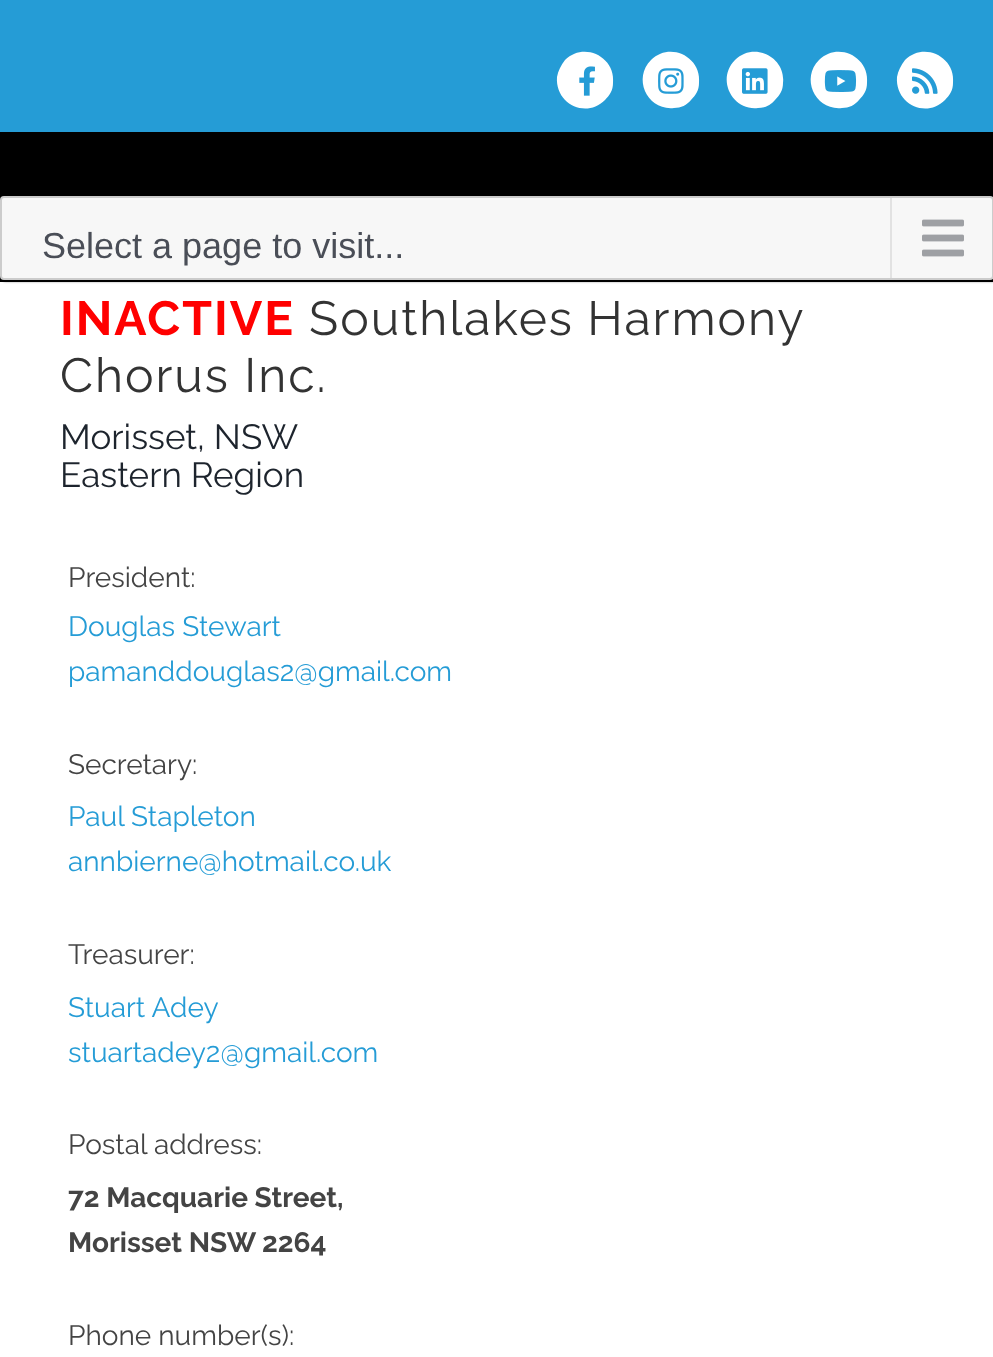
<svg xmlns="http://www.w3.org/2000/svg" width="993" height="1357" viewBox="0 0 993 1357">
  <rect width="100%" height="100%" fill="#fff"/>
  <path d="M0 0h993v132H0z" fill="#259cd6"/>
  <path d="M565 60C584 41 616 57 613 83C613 90 610 95 605 100C586 119 555 104 557 77C558 71 561 65 565 60Z" fill="#fff"/>
  <image x="579" y="66" width="16" height="30" href="img/1.png"/>
  <path d="M651 60C670 41 702 57 699 83C699 90 696 95 691 100C687 105 681 108 674 108C648 111 632 79 651 60Z" fill="#fff"/>
  <image x="658" y="68" width="26" height="26" href="img/2.png"/>
  <path d="M735 60C754 41 786 57 783 83C783 90 780 95 775 100C771 105 765 108 758 108C732 111 716 79 735 60Z" fill="#fff"/>
  <image x="742" y="68" width="26" height="26" href="img/3.png"/>
  <path d="M819 60C838 41 870 57 867 83C867 90 864 95 859 100C855 105 849 108 842 108C816 111 800 79 819 60Z" fill="#fff"/>
  <image x="824" y="70" width="33" height="22" href="img/4.png"/>
  <path d="M905 60C924 41 956 57 953 83C953 90 950 95 945 100C926 119 895 104 897 77C898 71 901 65 905 60Z" fill="#fff"/>
  <image x="912" y="68" width="26" height="26" href="img/5.png"/>
  <path d="M0 132h993v150H0z" fill="#000"/>
  <rect x="2" y="198" width="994" height="84" rx="4" fill="#00000059" filter="blur(1px)"/>
  <rect x="1" y="197" width="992" height="82" rx="3" fill="#f7f7f7" stroke="#ccc" stroke-width="2"/>
  <path d="M890 198h2v80H890z" fill="#e2e2e2"/>
  <image x="922" y="219" width="42" height="38" href="img/6.png"/>
  <text x="42" y="258" font-family="Liberation Sans" font-size="36" fill="#4a4e57">Select a page to visit...</text>
  <text x="60" y="335" font-family="Raleway" font-size="48" font-weight="bold" letter-spacing="2" fill="#f00">INACTIVE</text>
  <g font-family="Raleway" font-size="48" letter-spacing="2" fill="#333">
    <text x="309" y="335" word-spacing="-1">Southlakes Harmony</text>
    <text x="60" y="392">Chorus Inc.</text>
  </g>
  <g font-family="Raleway" font-size="35" fill="#1d242d">
    <text x="60" y="449">Morisset, NSW</text>
    <text x="60" y="487">Eastern Region</text>
  </g>
  <text x="68" y="587" font-family="Raleway" font-size="28" fill="#444">President:</text>
  <g font-family="Raleway" font-size="28" fill="#259cd6">
    <text x="68" y="636">Douglas Stewart</text>
    <text x="68" y="681">pamanddouglas2@gmail.com</text>
  </g>
  <text x="68" y="774" font-family="Raleway" font-size="28" fill="#444">Secretary:</text>
  <g font-family="Raleway" font-size="28" fill="#259cd6">
    <text x="68" y="826">Paul Stapleton</text>
    <text x="68" y="871">annbierne@hotmail.co.uk</text>
  </g>
  <text x="68" y="964" font-family="Raleway" font-size="28" fill="#444">Treasurer:</text>
  <g font-family="Raleway" font-size="28" fill="#259cd6">
    <text x="68" y="1017">Stuart Adey</text>
    <text x="68" y="1062">stuartadey2@gmail.com</text>
  </g>
  <text x="68" y="1154" font-family="Raleway" font-size="28" fill="#444">Postal address:</text>
  <g font-family="Raleway" font-size="28" font-weight="bold" fill="#444">
    <text x="68" y="1207">72 Macquarie Street,</text>
    <text x="68" y="1252">Morisset NSW 2264</text>
  </g>
  <text x="68" y="1345" font-family="Raleway" font-size="28" fill="#444">Phone number(s):</text>
</svg>
